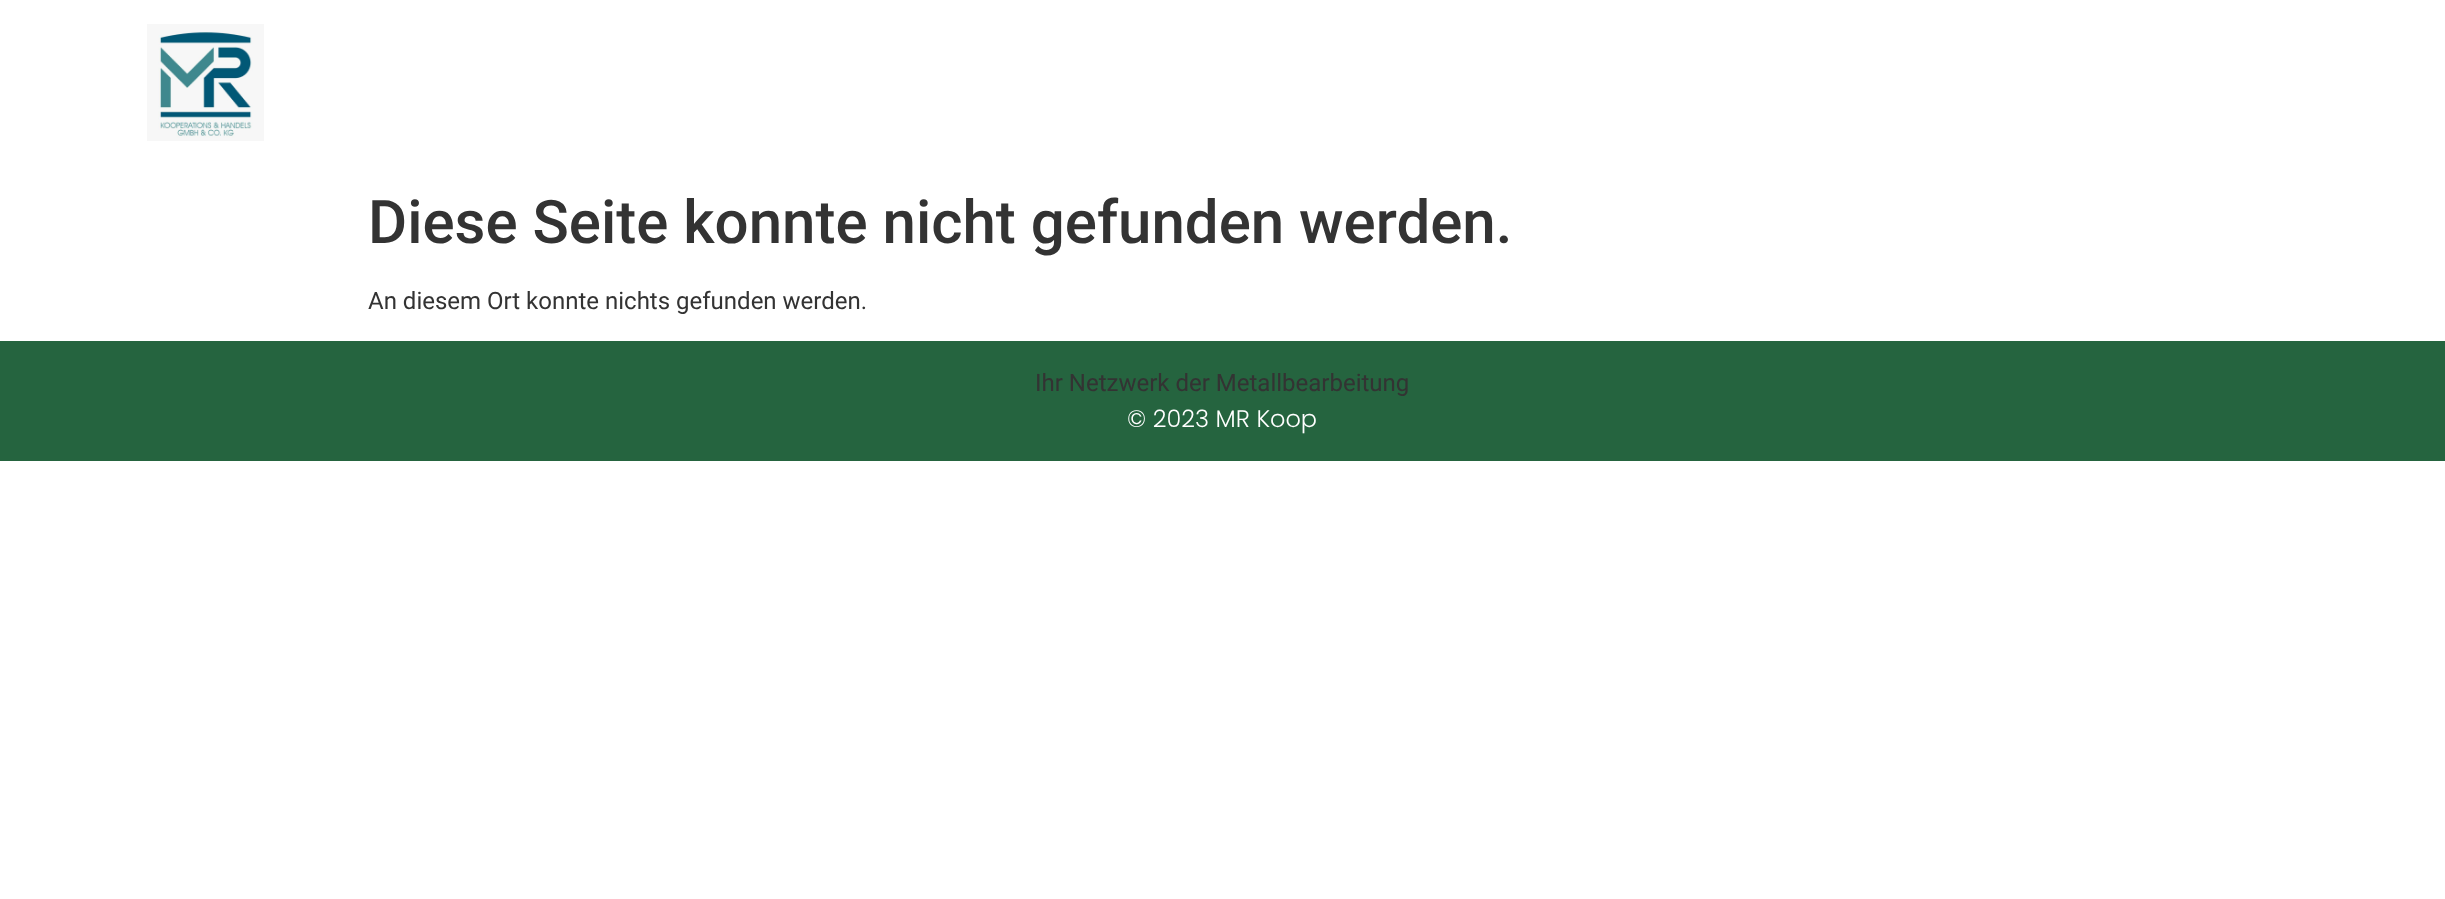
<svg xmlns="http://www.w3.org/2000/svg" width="2445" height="899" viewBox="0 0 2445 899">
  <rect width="100%" height="100%" fill="#fff"/>
  <image x="147" y="24" width="117" height="117" href="img/1.png"/>
  <path d="M0 341h2445v120H0z" fill="#25643f"/>
  <text x="368" y="243" font-family="Roboto" font-size="60" font-weight="500" fill="#333">Diese Seite konnte nicht gefunden werden.</text>
  <g font-family="Roboto" font-size="24" fill="#333">
    <text x="368" y="309">An diesem Ort konnte nichts gefunden werden.</text>
    <text x="1035" y="391">Ihr Netzwerk der Metallbearbeitung</text>
  </g>
  <text x="1127" y="427" font-family="Poppins" font-size="24" font-weight="300" fill="#fff">© 2023 MR Koop</text>
</svg>
